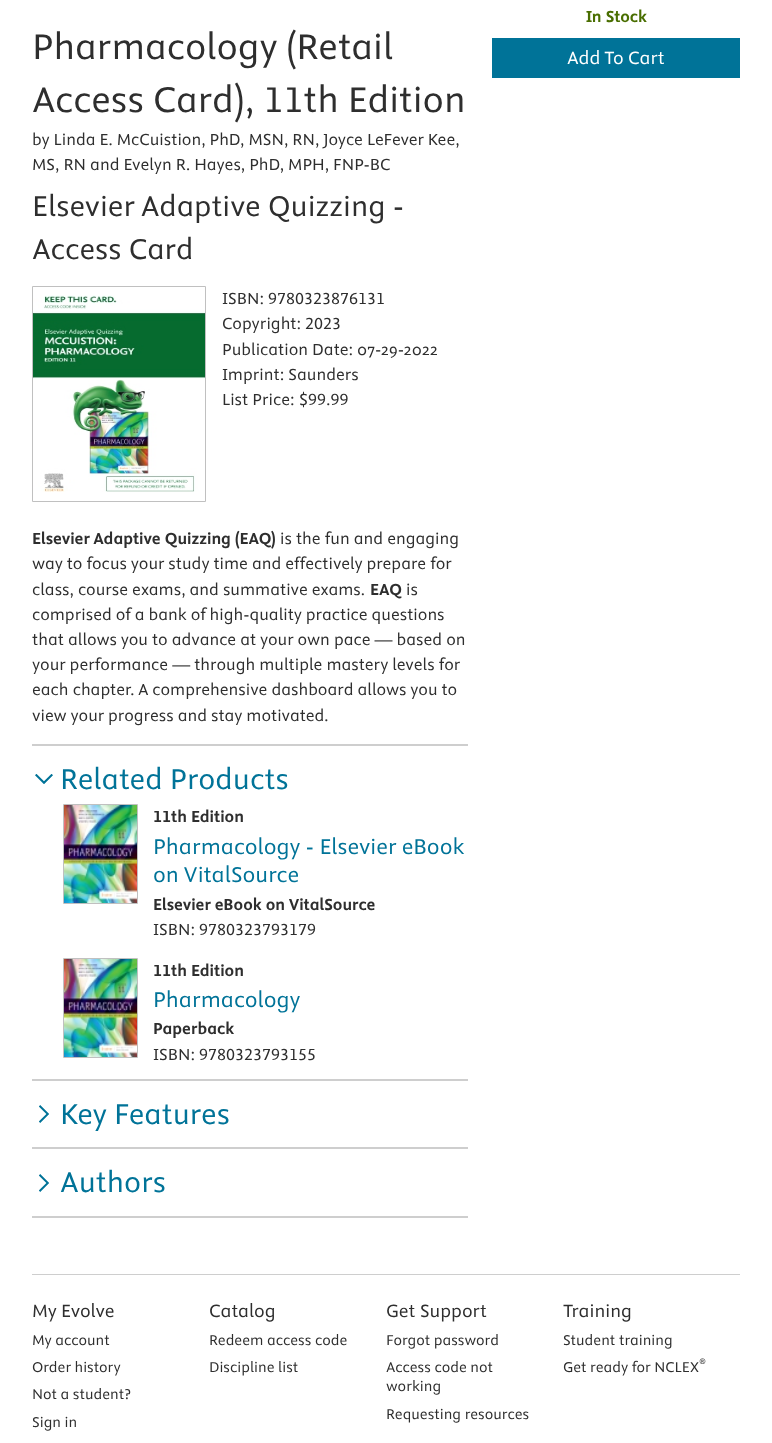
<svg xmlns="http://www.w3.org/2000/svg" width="772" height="1443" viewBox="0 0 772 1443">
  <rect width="100%" height="100%" fill="#fff"/>
  <path d="M32.5 286.5h173v215H32.5z" fill="none" stroke="#c0c0c0"/>
  <image x="33" y="295" width="172" height="197" href="img/1.png"/>
  <path d="M32 744h436v2H32z" fill="#cecece"/>
  <image x="35" y="774" width="18" height="10" href="img/2.png"/>
  <path d="M63.5 804.5h74v99H63.5z" fill="none" stroke="#c0c0c0"/>
  <image x="64" y="805" width="73" height="98" href="img/3.png"/>
  <path d="M63.5 958.5h74v99H63.5z" fill="none" stroke="#c0c0c0"/>
  <image x="64" y="959" width="73" height="98" href="img/3.png"/>
  <path d="M32 1079h436v2H32z" fill="#cecece"/>
  <image x="39" y="1105" width="10" height="18" href="img/4.png"/>
  <path d="M32 1147h436v2H32z" fill="#cecece"/>
  <path d="M32 1216h436v2H32z" fill="#cecece"/>
  <image x="39" y="1174" width="10" height="18" href="img/4.png"/>
  <path d="M492 38h248v40H492z" fill="#007398"/>
  <path d="M32 1274h708v1H32z" fill="#cecece"/>
  <text x="32" y="59" font-family="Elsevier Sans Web" font-size="40" fill="#2e2e2e">Pharmacology (Retail</text>
  <text x="32" y="112" font-family="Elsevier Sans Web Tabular" font-size="40" fill="#2e2e2e">Access Card), 11th Edition</text>
  <g font-family="Elsevier Sans Web" font-size="18" fill="#2e2e2e">
    <text x="32" y="145">by Linda E. McCuistion, PhD, MSN, RN, Joyce LeFever Kee,</text>
    <text x="32" y="170">MS, RN and Evelyn R. Hayes, PhD, MPH, FNP-BC</text>
  </g>
  <g font-family="Elsevier Sans Web" font-size="32" fill="#2e2e2e">
    <text x="32" y="216">Elsevier Adaptive Quizzing -</text>
    <text x="32" y="259">Access Card</text>
  </g>
  <text x="222" y="304" font-family="Elsevier Sans Web" font-size="18" fill="#2e2e2e">ISBN:</text>
  <text x="268" y="304" font-family="Elsevier Sans Web Tabular" font-size="18" fill="#2e2e2e">9780323876131</text>
  <text x="222" y="329" font-family="Elsevier Sans Web" font-size="18" fill="#2e2e2e">Copyright:</text>
  <text x="305" y="329" font-family="Elsevier Sans Web Tabular" font-size="18" fill="#2e2e2e">2023</text>
  <g font-family="Elsevier Sans Web" font-size="18" fill="#2e2e2e">
    <text x="222" y="355">Publication Date: 07-29-2022</text>
    <text x="222" y="380">Imprint: Saunders</text>
    <text x="222" y="405">List Price:</text>
  </g>
  <text x="299" y="405" font-family="Elsevier Sans Web Tabular" font-size="18" fill="#2e2e2e">$99.99</text>
  <text x="32" y="544" font-family="Elsevier Sans Web" font-size="18" font-weight="bold" fill="#2e2e2e">Elsevier Adaptive Quizzing (EAQ)</text>
  <g font-family="Elsevier Sans Web" font-size="18" fill="#2e2e2e">
    <text x="280" y="544">is the fun and engaging</text>
    <text x="32" y="569">way to focus your study time and effectively prepare for</text>
    <text x="32" y="595">class, course exams, and summative exams.</text>
  </g>
  <text x="370" y="595" font-family="Elsevier Sans Web" font-size="18" font-weight="bold" fill="#2e2e2e">EAQ</text>
  <g font-family="Elsevier Sans Web" font-size="18" fill="#2e2e2e">
    <text x="406" y="595">is</text>
    <text x="32" y="620">comprised of a bank of high-quality practice questions</text>
    <text x="32" y="645">that allows you to advance at your own pace — based on</text>
    <text x="32" y="670">your performance — through multiple mastery levels for</text>
    <text x="32" y="695">each chapter. A comprehensive dashboard allows you to</text>
    <text x="32" y="721">view your progress and stay motivated.</text>
  </g>
  <text x="60" y="789" font-family="Elsevier Sans Web" font-size="32" fill="#007398">Related Products</text>
  <text x="153" y="822" font-family="Elsevier Sans Web Tabular" font-size="18" font-weight="bold" fill="#2e2e2e">11th Edition</text>
  <g font-family="Elsevier Sans Web" font-size="24" fill="#007398">
    <text x="153" y="854">Pharmacology - Elsevier eBook</text>
    <text x="153" y="882">on VitalSource</text>
  </g>
  <text x="153" y="910" font-family="Elsevier Sans Web" font-size="18" font-weight="bold" fill="#2e2e2e">Elsevier eBook on VitalSource</text>
  <text x="153" y="935" font-family="Elsevier Sans Web Tabular" font-size="18" fill="#2e2e2e">ISBN: 9780323793179</text>
  <text x="153" y="976" font-family="Elsevier Sans Web Tabular" font-size="18" font-weight="bold" fill="#2e2e2e">11th Edition</text>
  <text x="153" y="1007" font-family="Elsevier Sans Web" font-size="24" fill="#007398">Pharmacology</text>
  <text x="153" y="1034" font-family="Elsevier Sans Web" font-size="18" font-weight="bold" fill="#2e2e2e">Paperback</text>
  <text x="153" y="1060" font-family="Elsevier Sans Web Tabular" font-size="18" fill="#2e2e2e">ISBN: 9780323793155</text>
  <g font-family="Elsevier Sans Web" font-size="32" fill="#007398">
    <text x="60" y="1124">Key Features</text>
    <text x="60" y="1192">Authors</text>
  </g>
  <text x="586" y="22" font-family="Elsevier Sans Web" font-size="18" font-weight="bold" fill="#496e01">In Stock</text>
  <text x="567" y="64" font-family="Elsevier Sans Web" font-size="20" fill="#fff">Add To Cart</text>
  <text x="32" y="1317" font-family="Elsevier Sans Web" font-size="20" fill="#2e2e2e">My Evolve</text>
  <g font-family="Elsevier Sans Web" font-size="16" fill="#2e2e2e">
    <text x="32" y="1345">My account</text>
    <text x="32" y="1372">Order history</text>
    <text x="32" y="1399">Not a student?</text>
    <text x="32" y="1427">Sign in</text>
  </g>
  <text x="209" y="1317" font-family="Elsevier Sans Web" font-size="20" fill="#2e2e2e">Catalog</text>
  <g font-family="Elsevier Sans Web" font-size="16" fill="#2e2e2e">
    <text x="209" y="1345">Redeem access code</text>
    <text x="209" y="1372">Discipline list</text>
  </g>
  <text x="386" y="1317" font-family="Elsevier Sans Web" font-size="20" fill="#2e2e2e">Get Support</text>
  <g font-family="Elsevier Sans Web" font-size="16" fill="#2e2e2e">
    <text x="386" y="1345">Forgot password</text>
    <text x="386" y="1372">Access code not</text>
    <text x="386" y="1391">working</text>
    <text x="386" y="1419">Requesting resources</text>
  </g>
  <text x="563" y="1317" font-family="Elsevier Sans Web" font-size="20" fill="#2e2e2e">Training</text>
  <g font-family="Elsevier Sans Web" font-size="16" fill="#2e2e2e">
    <text x="563" y="1345">Student training</text>
    <text x="563" y="1372">Get ready for NCLEX</text>
  </g>
  <text x="699" y="1366" font-family="Elsevier Sans Web" font-size="12" fill="#2e2e2e">®</text>
</svg>
